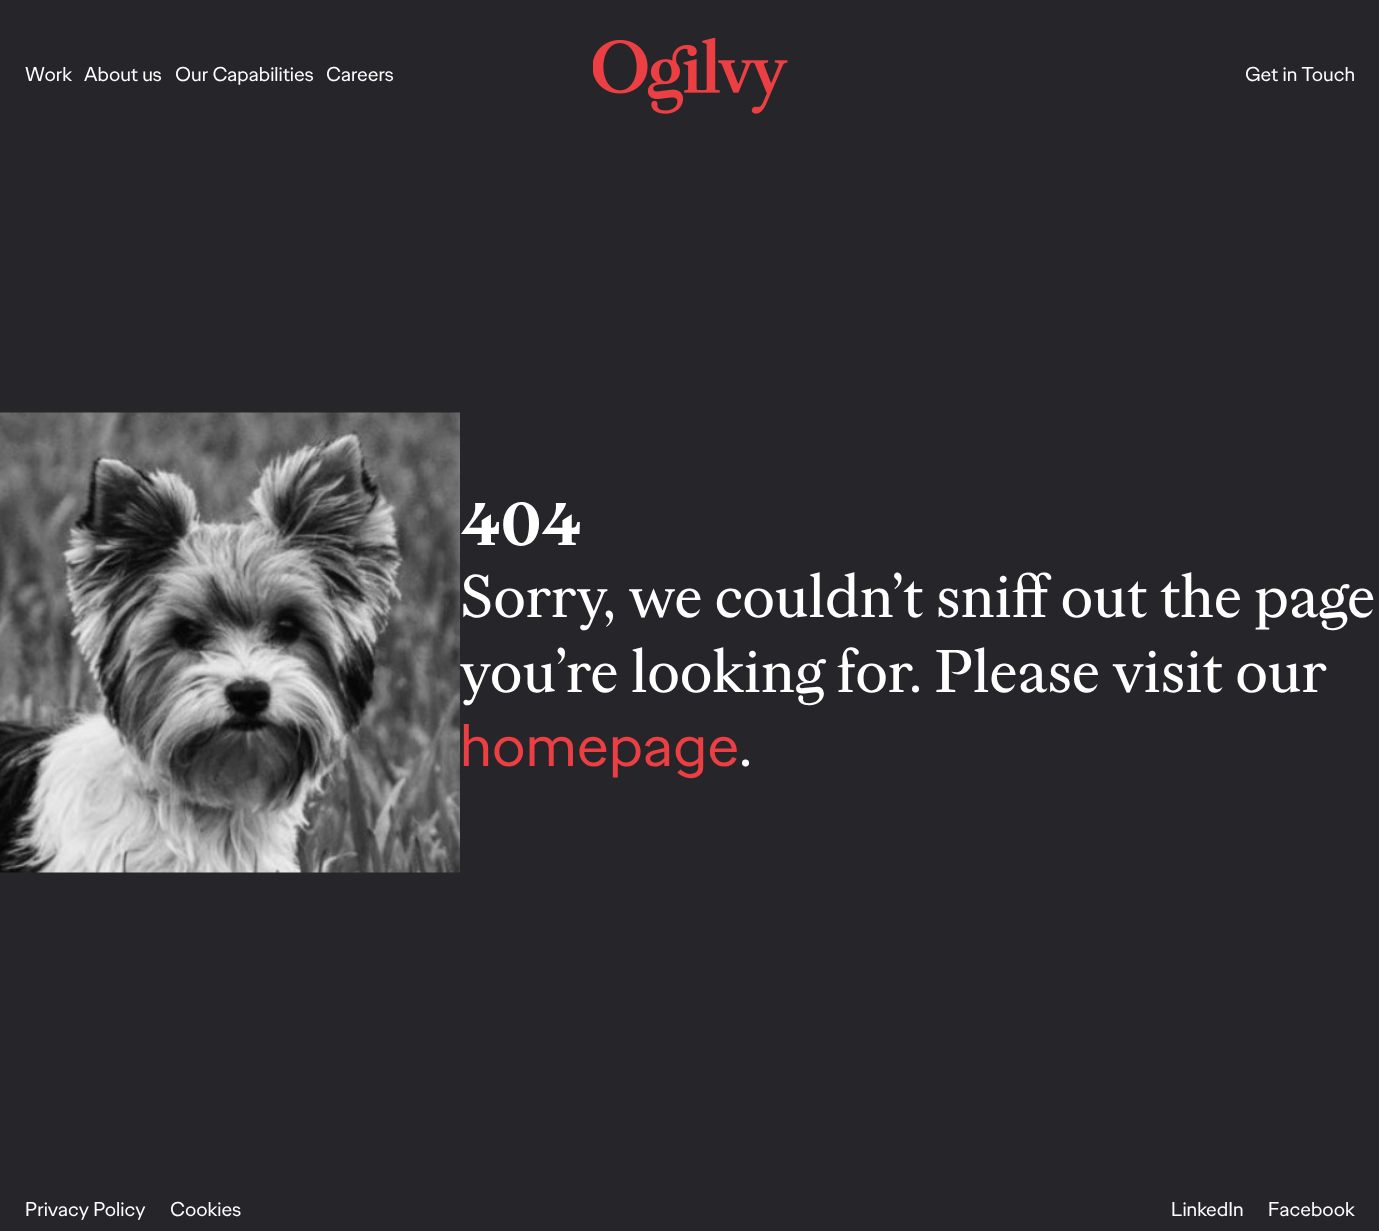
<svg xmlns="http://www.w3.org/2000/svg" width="1379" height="1231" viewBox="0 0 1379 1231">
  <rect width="100%" height="100%" fill="#262529"/>
  <image x="593" y="38" width="195" height="76" href="img/1.png"/>
  <image x="0" y="412" width="460" height="461" href="img/2.png"/>
  <g font-family="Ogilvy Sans" font-size="20" fill="#fff">
    <text x="25" y="81">Work</text>
    <text x="84" y="81">About us</text>
    <text x="175" y="81">Our Capabilities</text>
    <text x="326" y="81">Careers</text>
    <text x="1245" y="81">Get in Touch</text>
  </g>
  <text x="460" y="545" font-family="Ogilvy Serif" font-size="60" font-weight="bold" fill="#fff">404</text>
  <g font-family="Ogilvy Serif" font-size="60" fill="#fff">
    <text x="460" y="617">Sorry, we couldn’t sniff out the page</text>
    <text x="460" y="692">you’re looking for. Please visit our</text>
  </g>
  <text x="460" y="766" font-family="Ogilvy Sans" font-size="60" fill="#eb3f43">homepage</text>
  <text x="739" y="766" font-family="Ogilvy Serif" font-size="60" fill="#fff">.</text>
  <g font-family="Ogilvy Sans" font-size="20" fill="#fff">
    <text x="25" y="1216">Privacy Policy</text>
    <text x="170" y="1216">Cookies</text>
    <text x="1171" y="1216">LinkedIn</text>
    <text x="1268" y="1216">Facebook</text>
  </g>
</svg>
